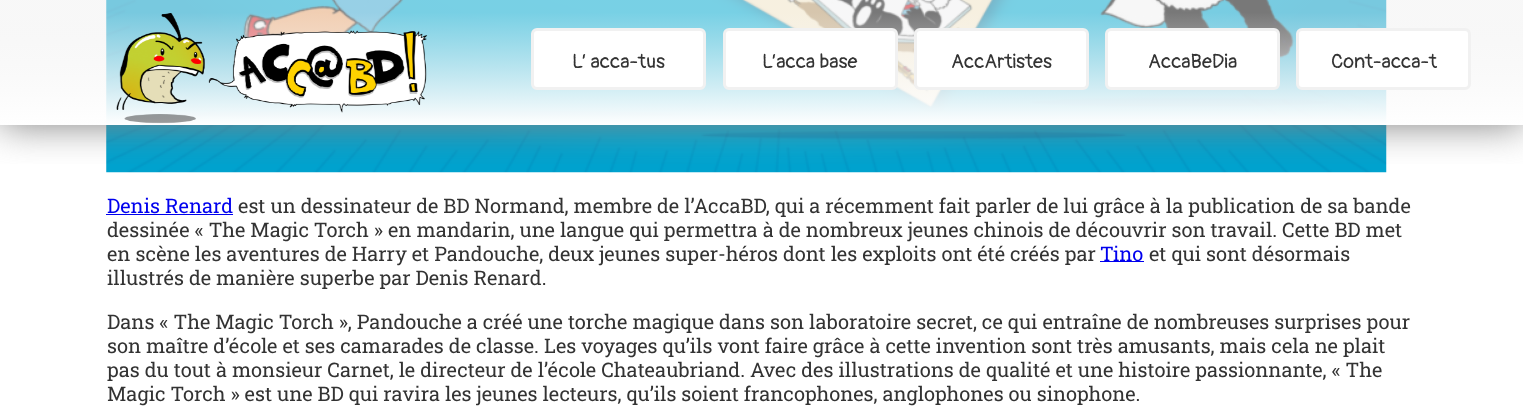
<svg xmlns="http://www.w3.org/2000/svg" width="1523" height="417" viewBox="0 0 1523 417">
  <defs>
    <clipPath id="clip1"><path d="M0 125h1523v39H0z"/></clipPath>
    <linearGradient id="g1" gradientUnits="userSpaceOnUse" x1="762" y1="125" x2="762" y2="0"><stop offset="0" stop-color="#fff"/><stop offset="0.9" stop-color="#f0f0f0" stop-opacity="0.5"/></linearGradient>
  </defs>
  <rect width="100%" height="100%" fill="#fff"/>
  <image x="106" y="0" width="1281" height="173" href="img/2.png"/>
  <g clip-path="url(#clip1)">
    <path d="M0 0h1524v125H0z" fill="#808080" filter="blur(19px)"/>
  </g>
  <path d="M0 0h1523v125H0z" fill="url(#g1)"/>
  <image x="116" y="13" width="312" height="111" href="img/1.png"/>
  <rect x="532.5" y="29.5" width="172" height="59" rx="4.5" fill="#fff" stroke="#f1f1f1" stroke-width="3"/>
  <rect x="724.5" y="29.5" width="172" height="59" rx="4.5" fill="#fff" stroke="#f1f1f1" stroke-width="3"/>
  <rect x="915.5" y="29.5" width="172" height="59" rx="4.5" fill="#fff" stroke="#f1f1f1" stroke-width="3"/>
  <rect x="1106.5" y="29.5" width="172" height="59" rx="4.5" fill="#fff" stroke="#f1f1f1" stroke-width="3"/>
  <rect x="1297.5" y="29.5" width="172" height="59" rx="4.5" fill="#fff" stroke="#f1f1f1" stroke-width="3"/>
  <path d="M106 214h127v1H106z" fill="#00e"/>
  <path d="M1100 261h44v1H1100z" fill="#00e"/>
  <g font-family="Pangolin" font-size="20" fill="#333">
    <text x="572" y="68">L’ acca-tus</text>
    <text x="762" y="68">L’acca base</text>
    <text x="951" y="68">AccArtistes</text>
    <text x="1148" y="68">AccaBeDia</text>
    <text x="1331" y="68">Cont-acca-t</text>
  </g>
  <text x="107" y="213" font-family="Roboto Slab" font-size="20" fill="#00e">Denis Renard</text>
  <g font-family="Roboto Slab" font-size="20" fill="#333">
    <text x="238" y="213">est un dessinateur de BD Normand, membre de l’AccaBD, qui a récemment fait parler de lui grâce à la publication de sa bande</text>
    <text x="107" y="237">dessinée « The Magic Torch » en mandarin, une langue qui permettra à de nombreux jeunes chinois de découvrir son travail. Cette BD met</text>
    <text x="107" y="261">en scène les aventures de Harry et Pandouche, deux jeunes super-héros dont les exploits ont été créés par</text>
  </g>
  <text x="1100" y="261" font-family="Roboto Slab" font-size="20" fill="#00e">Tino</text>
  <g font-family="Roboto Slab" font-size="20" fill="#333">
    <text x="1149" y="261">et qui sont désormais</text>
    <text x="107" y="285">illustrés de manière superbe par Denis Renard.</text>
    <text x="107" y="329">Dans « The Magic Torch », Pandouche a créé une torche magique dans son laboratoire secret, ce qui entraîne de nombreuses surprises pour</text>
    <text x="107" y="353">son maître d’école et ses camarades de classe. Les voyages qu’ils vont faire grâce à cette invention sont très amusants, mais cela ne plait</text>
    <text x="107" y="377">pas du tout à monsieur Carnet, le directeur de l’école Chateaubriand. Avec des illustrations de qualité et une histoire passionnante, « The</text>
    <text x="107" y="401">Magic Torch » est une BD qui ravira les jeunes lecteurs, qu’ils soient francophones, anglophones ou sinophone.</text>
  </g>
</svg>
